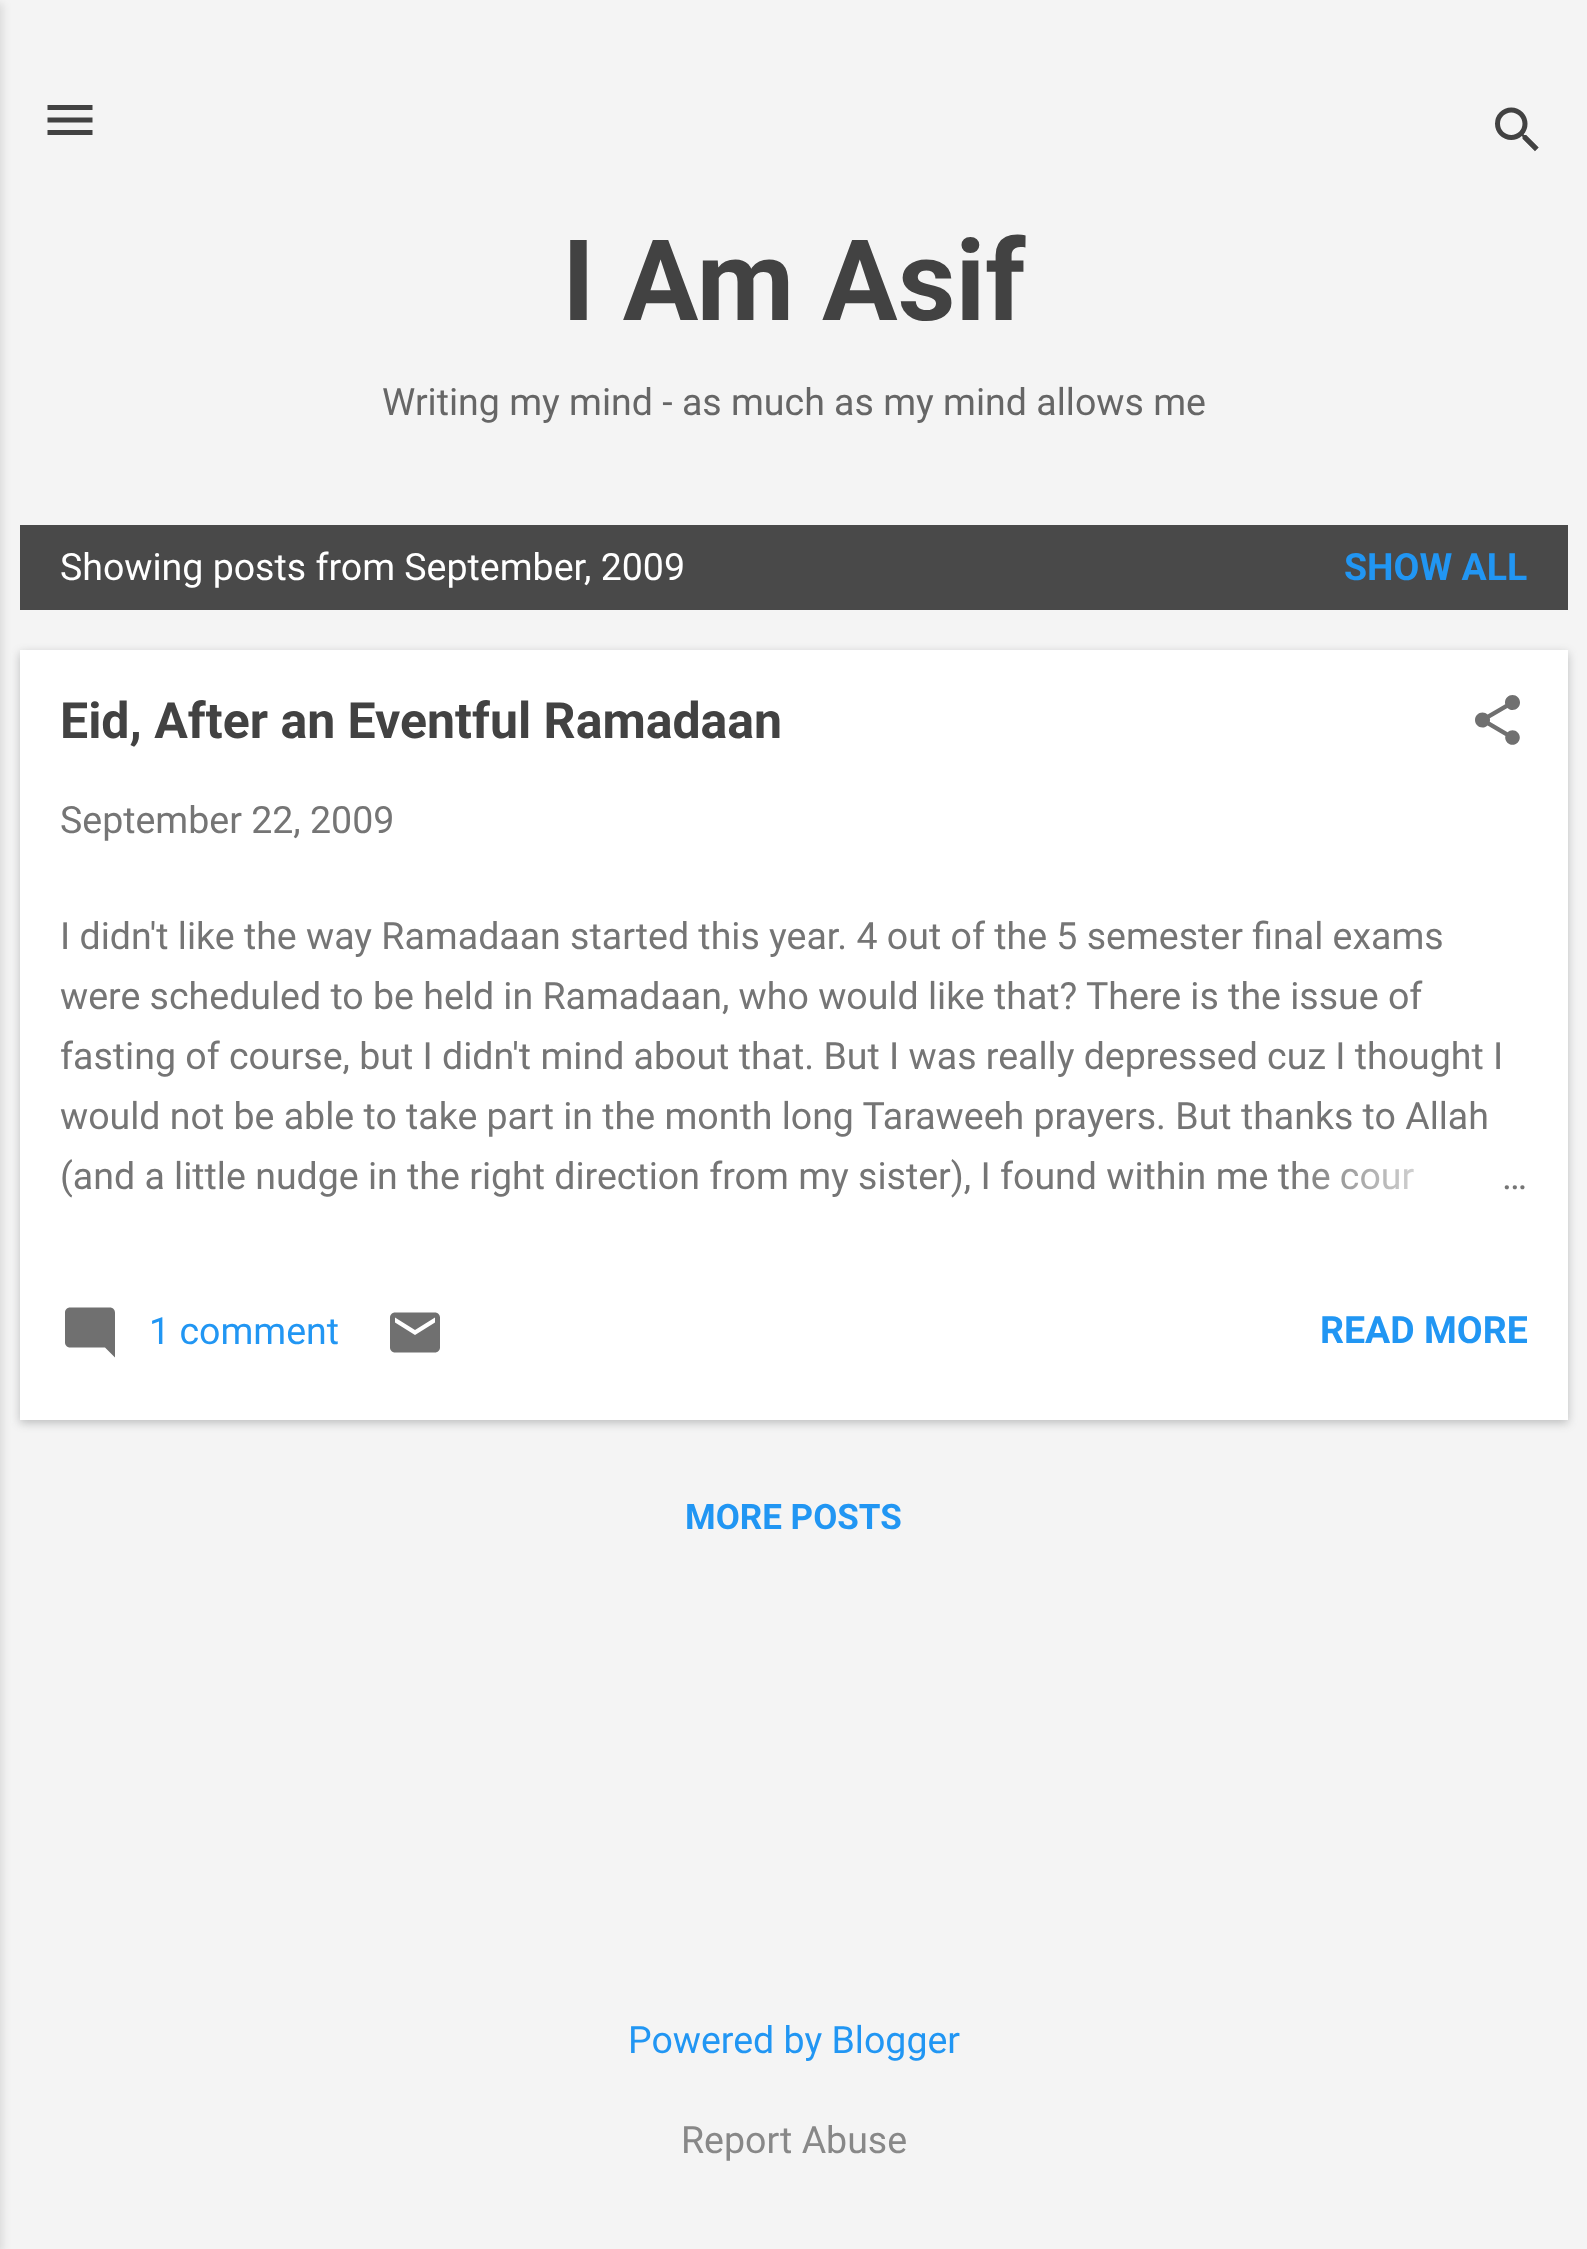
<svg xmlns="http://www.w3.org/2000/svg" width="1587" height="2249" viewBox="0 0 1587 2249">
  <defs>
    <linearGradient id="g1" gradientUnits="userSpaceOnUse" x1="1528" y1="1178" x2="1288" y2="1178"><stop offset="0" stop-color="#fff"/><stop offset="0.2" stop-color="#fff"/><stop offset="1" stop-color="#fff" stop-opacity="0"/></linearGradient>
  </defs>
  <rect width="100%" height="100%" fill="#f4f4f4"/>
  <path d="M-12 3h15v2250H-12z" fill="#0000001a" filter="blur(4px)"/>
  <image x="47" y="105" width="46" height="30" href="img/1.png"/>
  <image x="1495" y="107" width="44" height="45" href="img/2.png"/>
  <path d="M20 525h1548v85H20z" fill="#494949"/>
  <path d="M20 653h1548v770H20z" fill="#3c40434d" filter="blur(5px)"/>
  <path d="M20 650h1548v770H20z" fill="#fff"/>
  <image x="1475" y="695" width="45" height="50" href="img/3.png"/>
  <image x="65" y="1307" width="50" height="51" href="img/4.png"/>
  <image x="390" y="1312" width="50" height="41" href="img/5.png"/>
  <text x="562" y="320" font-family="Roboto" font-size="112.5" font-weight="bold" fill="#424242">I Am Asif</text>
  <text x="382" y="415" font-family="Roboto" font-size="37.5" fill="#666">Writing my mind - as much as my mind allows me</text>
  <text x="60" y="580" font-family="Roboto" font-size="37.5" fill="#fff">Showing posts from September, 2009</text>
  <text x="1344" y="580" font-family="Roboto" font-size="37.5" font-weight="bold" fill="#2196f3">SHOW ALL</text>
  <text x="60" y="738" font-family="Roboto" font-size="50" font-weight="bold" fill="#424242">Eid, After an Eventful Ramadaan</text>
  <g font-family="Roboto" font-size="37.5" fill="#757575">
    <text x="60" y="833">September 22, 2009</text>
    <text x="60" y="949">I didn't like the way Ramadaan started this year. 4 out of the 5 semester final exams</text>
    <text x="60" y="1009">were scheduled to be held in Ramadaan, who would like that? There is the issue of</text>
    <text x="60" y="1069">fasting of course, but I didn't mind about that. But I was really depressed cuz I thought I</text>
    <text x="60" y="1129">would not be able to take part in the month long Taraweeh prayers. But thanks to Allah</text>
    <text x="60" y="1189">(and a little nudge in the right direction from my sister), I found within me the cour</text>
  </g>
  <path d="M1293 1161h121v29H1293z" fill="url(#g1)"/>
  <text x="1502" y="1189" font-family="Roboto" font-size="37.5" fill="#757575">…</text>
  <text x="149" y="1344" font-family="Roboto" font-size="37.5" fill="#2196f3">1 comment</text>
  <text x="1320" y="1343" font-family="Roboto" font-size="37.5" font-weight="bold" fill="#2196f3">READ MORE</text>
  <text x="685" y="1529" font-family="Roboto" font-size="35" font-weight="bold" fill="#2196f3">MORE POSTS</text>
  <text x="628" y="2053" font-family="Roboto" font-size="37.5" fill="#2196f3">Powered by Blogger</text>
  <text x="681" y="2153" font-family="Roboto" font-size="37.5" fill="#888">Report Abuse</text>
</svg>
